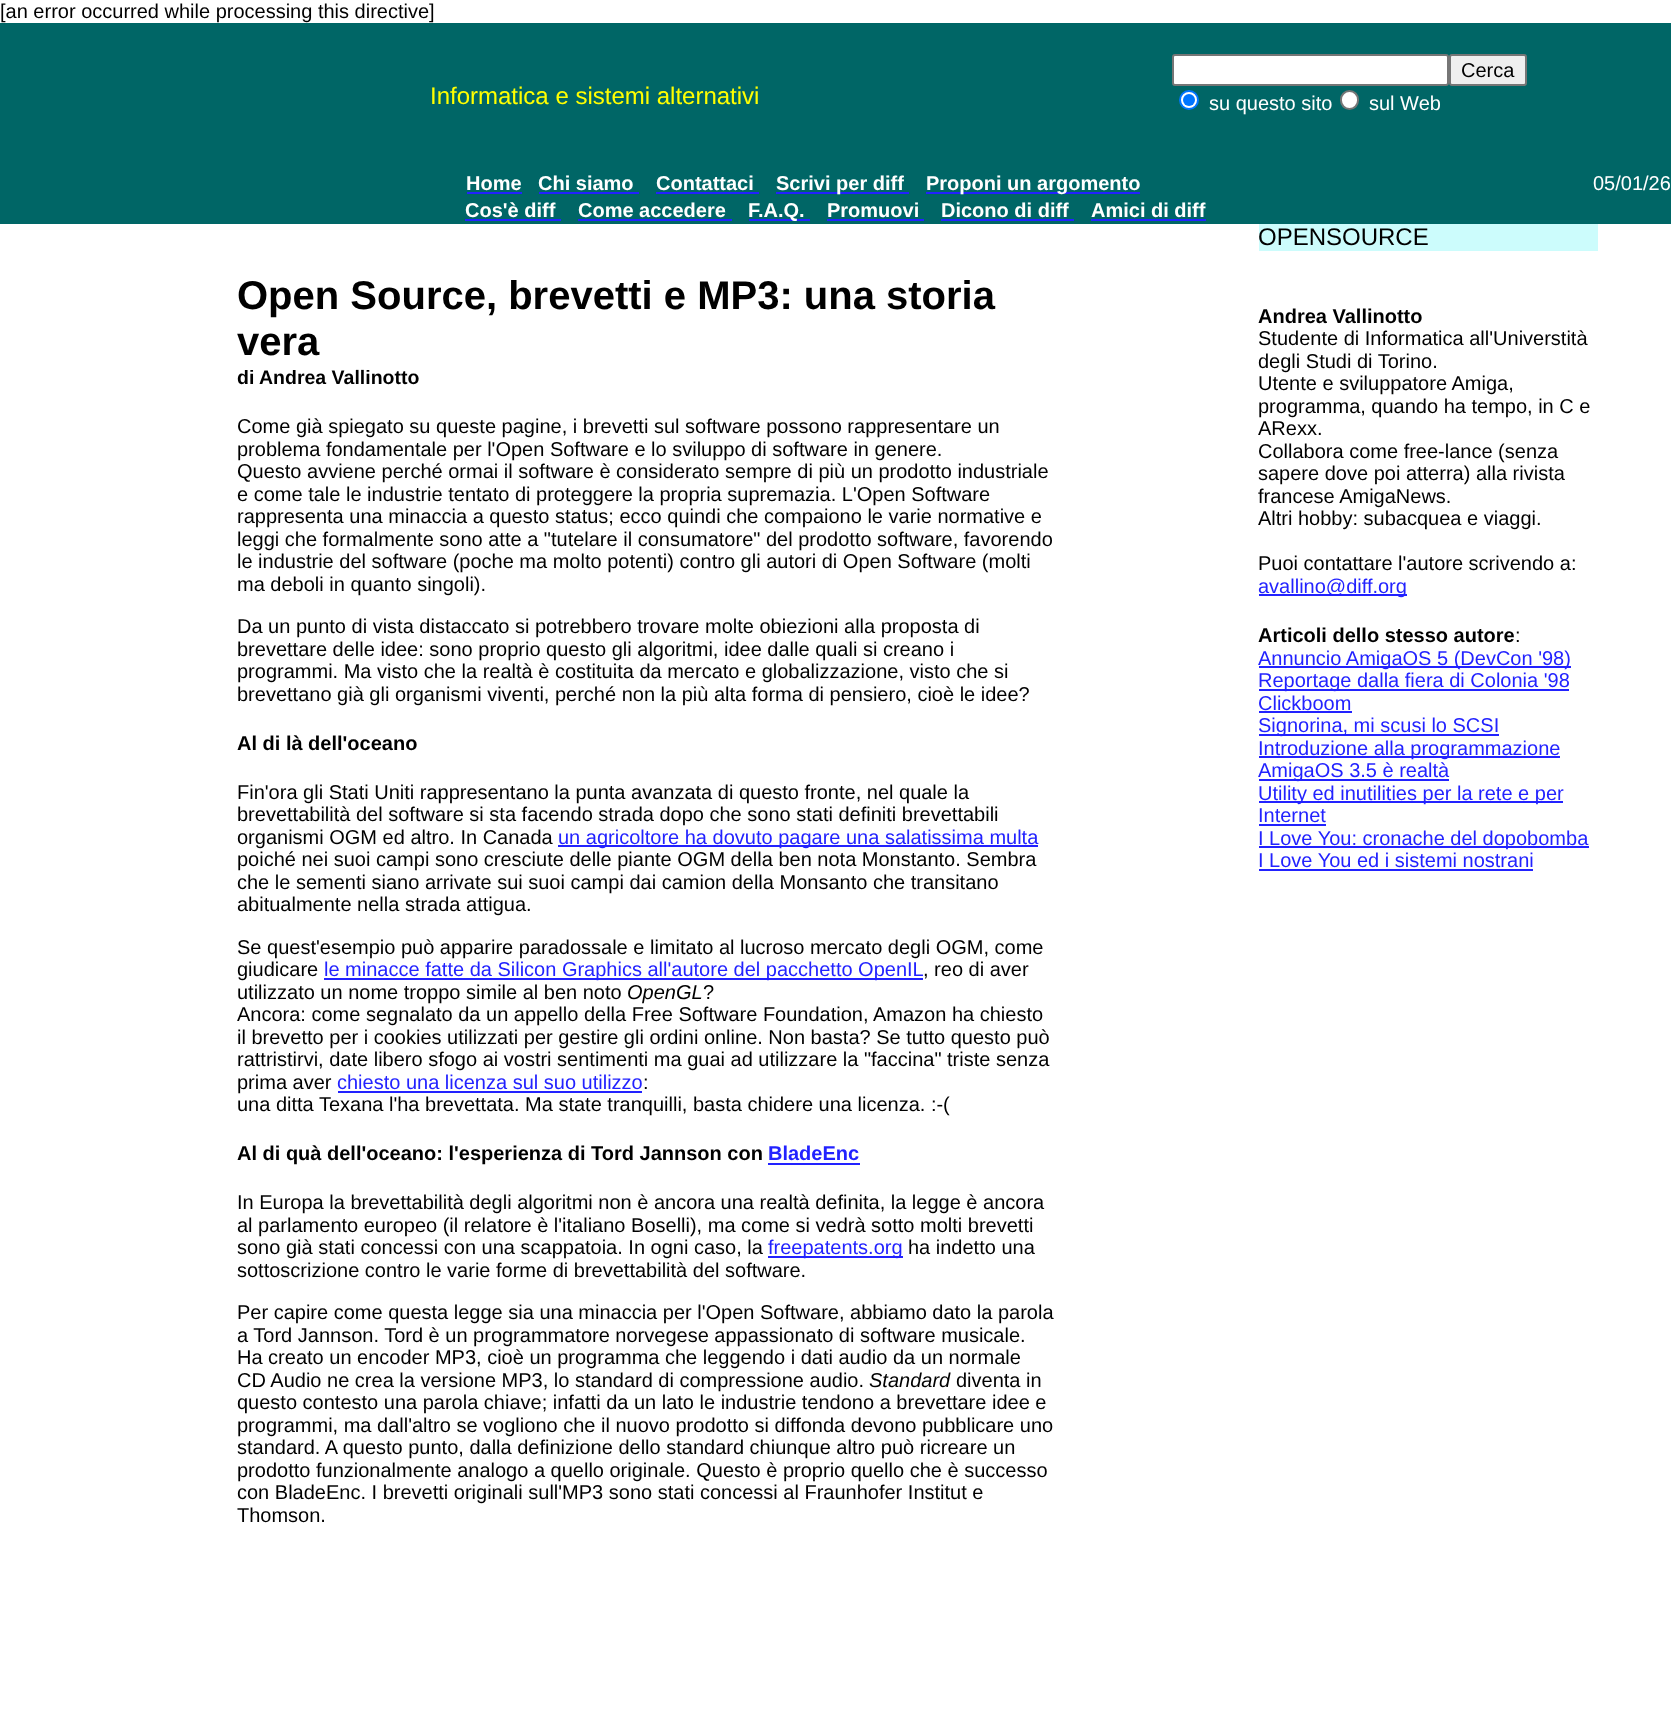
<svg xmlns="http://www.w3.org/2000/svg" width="1671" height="1714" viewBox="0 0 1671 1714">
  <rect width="100%" height="100%" fill="#fff"/>
  <path d="M0 23h1671v201H0z" fill="#066"/>
  <rect x="1173" y="55" width="275" height="30" rx="2" fill="#fff" stroke="#767676" stroke-width="2"/>
  <rect x="1450" y="55" width="76" height="30" rx="2" fill="#efefef" stroke="#767676" stroke-width="2"/>
  <circle cx="1189" cy="100" r="9" fill="#fff" stroke="#0075ff" stroke-width="2"/>
  <circle cx="1189" cy="100" r="6" fill="#0075ff"/>
  <rect x="1341" y="91" width="17" height="18" rx="8.5" fill="#fff" stroke="#767676" stroke-width="2"/>
  <path d="M467 192h55v2H467z" fill="#22f"/>
  <path d="M539 192h100v2H539z" fill="#22f"/>
  <path d="M656 192h103v2H656z" fill="#22f"/>
  <path d="M776 192h133v2H776z" fill="#22f"/>
  <path d="M926 192h214v2H926z" fill="#22f"/>
  <path d="M465 219h96v2H465z" fill="#22f"/>
  <path d="M578 219h154v2H578z" fill="#22f"/>
  <path d="M749 219h61v2H749z" fill="#22f"/>
  <path d="M827 219h97v2H827z" fill="#22f"/>
  <path d="M941 219h133v2H941z" fill="#22f"/>
  <path d="M1091 219h115v2H1091z" fill="#22f"/>
  <path d="M558 845h480v2H558z" fill="#22f"/>
  <path d="M324 978h599v2H324z" fill="#22f"/>
  <path d="M338 1091h304v2H338z" fill="#22f"/>
  <path d="M768 1163h92v2H768z" fill="#22f"/>
  <path d="M768 1256h135v2H768z" fill="#22f"/>
  <path d="M1259 224h339v27H1259z" fill="#ccfcfc"/>
  <path d="M1259 594h148v2H1259z" fill="#22f"/>
  <path d="M1259 666h312v2H1259z" fill="#22f"/>
  <path d="M1259 689h310v2H1259z" fill="#22f"/>
  <path d="M1259 711h93v2H1259z" fill="#22f"/>
  <path d="M1259 734h240v2H1259z" fill="#22f"/>
  <path d="M1259 756h301v2H1259z" fill="#22f"/>
  <path d="M1259 779h190v2H1259z" fill="#22f"/>
  <path d="M1259 801h304v2H1259z" fill="#22f"/>
  <path d="M1259 824h67v2H1259z" fill="#22f"/>
  <path d="M1259 846h330v2H1259z" fill="#22f"/>
  <path d="M1259 869h274v2H1259z" fill="#22f"/>
  <text x="0" y="18" font-family="Liberation Sans" font-size="20" fill="#000">[an error occurred while processing this directive]</text>
  <text x="430" y="104" font-family="Liberation Sans" font-size="24" fill="#ff0">Informatica e sistemi alternativi</text>
  <text x="1461" y="77" font-family="Liberation Sans" font-size="20" fill="#000">Cerca</text>
  <g font-family="Liberation Sans" font-size="20" fill="#fff">
    <text x="1209" y="110">su questo sito</text>
    <text x="1369" y="110">sul Web</text>
  </g>
  <g font-family="Liberation Sans" font-size="20" font-weight="bold" fill="#fff">
    <text x="466" y="190">Home</text>
    <text x="538" y="190">Chi siamo</text>
    <text x="656" y="190">Contattaci</text>
    <text x="776" y="190">Scrivi per diff</text>
    <text x="926" y="190">Proponi un argomento</text>
  </g>
  <text x="1593" y="190" font-family="Liberation Sans" font-size="20" fill="#fff">05/01/26</text>
  <g font-family="Liberation Sans" font-size="20" font-weight="bold" fill="#fff">
    <text x="465" y="217">Cos'è diff</text>
    <text x="578" y="217">Come accedere</text>
    <text x="748" y="217">F.A.Q.</text>
    <text x="827" y="217">Promuovi</text>
    <text x="941" y="217">Dicono di diff</text>
    <text x="1091" y="217">Amici di diff</text>
  </g>
  <g font-family="Liberation Sans" font-size="40" font-weight="bold" fill="#000">
    <text x="237" y="309">Open Source, brevetti e MP3: una storia</text>
    <text x="237" y="355">vera</text>
  </g>
  <text x="237" y="384" font-family="Liberation Sans" font-size="19.5" font-weight="bold" fill="#000">di Andrea Vallinotto</text>
  <g font-family="Liberation Sans" font-size="20" fill="#000">
    <text x="237" y="433">Come già spiegato su queste pagine, i brevetti sul software possono rappresentare un</text>
    <text x="237" y="456">problema fondamentale per l'Open Software e lo sviluppo di software in genere.</text>
    <text x="237" y="478">Questo avviene perché ormai il software è considerato sempre di più un prodotto industriale</text>
    <text x="237" y="501">e come tale le industrie tentato di proteggere la propria supremazia. L'Open Software</text>
    <text x="237" y="523">rappresenta una minaccia a questo status; ecco quindi che compaiono le varie normative e</text>
    <text x="237" y="546">leggi che formalmente sono atte a "tutelare il consumatore" del prodotto software, favorendo</text>
    <text x="237" y="568">le industrie del software (poche ma molto potenti) contro gli autori di Open Software (molti</text>
    <text x="237" y="591">ma deboli in quanto singoli).</text>
    <text x="237" y="633">Da un punto di vista distaccato si potrebbero trovare molte obiezioni alla proposta di</text>
    <text x="237" y="656">brevettare delle idee: sono proprio questo gli algoritmi, idee dalle quali si creano i</text>
    <text x="237" y="678">programmi. Ma visto che la realtà è costituita da mercato e globalizzazione, visto che si</text>
    <text x="237" y="701">brevettano già gli organismi viventi, perché non la più alta forma di pensiero, cioè le idee?</text>
  </g>
  <text x="237" y="750" font-family="Liberation Sans" font-size="20" font-weight="bold" fill="#000">Al di là dell'oceano</text>
  <g font-family="Liberation Sans" font-size="20" fill="#000">
    <text x="237" y="799">Fin'ora gli Stati Uniti rappresentano la punta avanzata di questo fronte, nel quale la</text>
    <text x="237" y="821">brevettabilità del software si sta facendo strada dopo che sono stati definiti brevettabili</text>
    <text x="237" y="844">organismi OGM ed altro. In Canada</text>
  </g>
  <text x="558" y="844" font-family="Liberation Sans" font-size="20" fill="#22f">un agricoltore ha dovuto pagare una salatissima multa</text>
  <g font-family="Liberation Sans" font-size="20" fill="#000">
    <text x="237" y="866">poiché nei suoi campi sono cresciute delle piante OGM della ben nota Monstanto. Sembra</text>
    <text x="237" y="889">che le sementi siano arrivate sui suoi campi dai camion della Monsanto che transitano</text>
    <text x="237" y="911">abitualmente nella strada attigua.</text>
    <text x="237" y="954">Se quest'esempio può apparire paradossale e limitato al lucroso mercato degli OGM, come</text>
    <text x="237" y="976">giudicare</text>
  </g>
  <text x="324" y="976" font-family="Liberation Sans" font-size="20" fill="#22f">le minacce fatte da Silicon Graphics all'autore del pacchetto OpenIL</text>
  <g font-family="Liberation Sans" font-size="20" fill="#000">
    <text x="923" y="976">, reo di aver</text>
    <text x="237" y="999">utilizzato un nome troppo simile al ben noto</text>
  </g>
  <text x="627" y="999" font-family="Liberation Sans" font-size="20" font-style="italic" fill="#000">OpenGL</text>
  <g font-family="Liberation Sans" font-size="20" fill="#000">
    <text x="703" y="999">?</text>
    <text x="237" y="1021">Ancora: come segnalato da un appello della Free Software Foundation, Amazon ha chiesto</text>
    <text x="237" y="1044">il brevetto per i cookies utilizzati per gestire gli ordini online. Non basta? Se tutto questo può</text>
    <text x="237" y="1066">rattristirvi, date libero sfogo ai vostri sentimenti ma guai ad utilizzare la "faccina" triste senza</text>
    <text x="237" y="1089">prima aver</text>
  </g>
  <text x="337" y="1089" font-family="Liberation Sans" font-size="20" fill="#22f">chiesto una licenza sul suo utilizzo</text>
  <g font-family="Liberation Sans" font-size="20" fill="#000">
    <text x="643" y="1089">:</text>
    <text x="237" y="1111">una ditta Texana l'ha brevettata. Ma state tranquilli, basta chidere una licenza. :-(</text>
  </g>
  <text x="237" y="1160" font-family="Liberation Sans" font-size="20" font-weight="bold" fill="#000">Al di quà dell'oceano: l'esperienza di Tord Jannson con</text>
  <text x="768" y="1160" font-family="Liberation Sans" font-size="20" font-weight="bold" fill="#22f">BladeEnc</text>
  <g font-family="Liberation Sans" font-size="20" fill="#000">
    <text x="237" y="1209">In Europa la brevettabilità degli algoritmi non è ancora una realtà definita, la legge è ancora</text>
    <text x="237" y="1232">al parlamento europeo (il relatore è l'italiano Boselli), ma come si vedrà sotto molti brevetti</text>
    <text x="237" y="1254">sono già stati concessi con una scappatoia. In ogni caso, la</text>
  </g>
  <text x="768" y="1254" font-family="Liberation Sans" font-size="20" fill="#22f">freepatents.org</text>
  <g font-family="Liberation Sans" font-size="20" fill="#000">
    <text x="908" y="1254">ha indetto una</text>
    <text x="237" y="1277">sottoscrizione contro le varie forme di brevettabilità del software.</text>
    <text x="237" y="1319">Per capire come questa legge sia una minaccia per l'Open Software, abbiamo dato la parola</text>
    <text x="237" y="1342">a Tord Jannson. Tord è un programmatore norvegese appassionato di software musicale.</text>
    <text x="237" y="1364">Ha creato un encoder MP3, cioè un programma che leggendo i dati audio da un normale</text>
    <text x="237" y="1387">CD Audio ne crea la versione MP3, lo standard di compressione audio.</text>
  </g>
  <text x="869" y="1387" font-family="Liberation Sans" font-size="20" font-style="italic" fill="#000">Standard</text>
  <g font-family="Liberation Sans" font-size="20" fill="#000">
    <text x="956" y="1387">diventa in</text>
    <text x="237" y="1409">questo contesto una parola chiave; infatti da un lato le industrie tendono a brevettare idee e</text>
    <text x="237" y="1432">programmi, ma dall'altro se vogliono che il nuovo prodotto si diffonda devono pubblicare uno</text>
    <text x="237" y="1454">standard. A questo punto, dalla definizione dello standard chiunque altro può ricreare un</text>
    <text x="237" y="1477">prodotto funzionalmente analogo a quello originale. Questo è proprio quello che è successo</text>
    <text x="237" y="1499">con BladeEnc. I brevetti originali sull'MP3 sono stati concessi al Fraunhofer Institut e</text>
    <text x="237" y="1522">Thomson.</text>
  </g>
  <text x="1258" y="245" font-family="Liberation Sans" font-size="24" fill="#000">OPENSOURCE</text>
  <text x="1258" y="323" font-family="Liberation Sans" font-size="20" font-weight="bold" fill="#000">Andrea Vallinotto</text>
  <g font-family="Liberation Sans" font-size="20" fill="#000">
    <text x="1258" y="345">Studente di Informatica all'Universtità</text>
    <text x="1258" y="368">degli Studi di Torino.</text>
    <text x="1258" y="390">Utente e sviluppatore Amiga,</text>
    <text x="1258" y="413">programma, quando ha tempo, in C e</text>
    <text x="1258" y="435">ARexx.</text>
    <text x="1258" y="458">Collabora come free-lance (senza</text>
    <text x="1258" y="480">sapere dove poi atterra) alla rivista</text>
    <text x="1258" y="503">francese AmigaNews.</text>
    <text x="1258" y="525">Altri hobby: subacquea e viaggi.</text>
    <text x="1258" y="570">Puoi contattare l'autore scrivendo a:</text>
  </g>
  <text x="1258" y="593" font-family="Liberation Sans" font-size="20" fill="#22f">avallino@diff.org</text>
  <text x="1258" y="642" font-family="Liberation Sans" font-size="20" font-weight="bold" fill="#000">Articoli dello stesso autore</text>
  <text x="1515" y="642" font-family="Liberation Sans" font-size="20" fill="#000">:</text>
  <g font-family="Liberation Sans" font-size="20" fill="#22f">
    <text x="1258" y="665">Annuncio AmigaOS 5 (DevCon '98)</text>
    <text x="1258" y="687">Reportage dalla fiera di Colonia '98</text>
    <text x="1258" y="710">Clickboom</text>
    <text x="1258" y="732">Signorina, mi scusi lo SCSI</text>
    <text x="1258" y="755">Introduzione alla programmazione</text>
    <text x="1258" y="777">AmigaOS 3.5 è realtà</text>
    <text x="1258" y="800">Utility ed inutilities per la rete e per</text>
    <text x="1258" y="822">Internet</text>
    <text x="1258" y="845">I Love You: cronache del dopobomba</text>
    <text x="1258" y="867">I Love You ed i sistemi nostrani</text>
  </g>
</svg>
